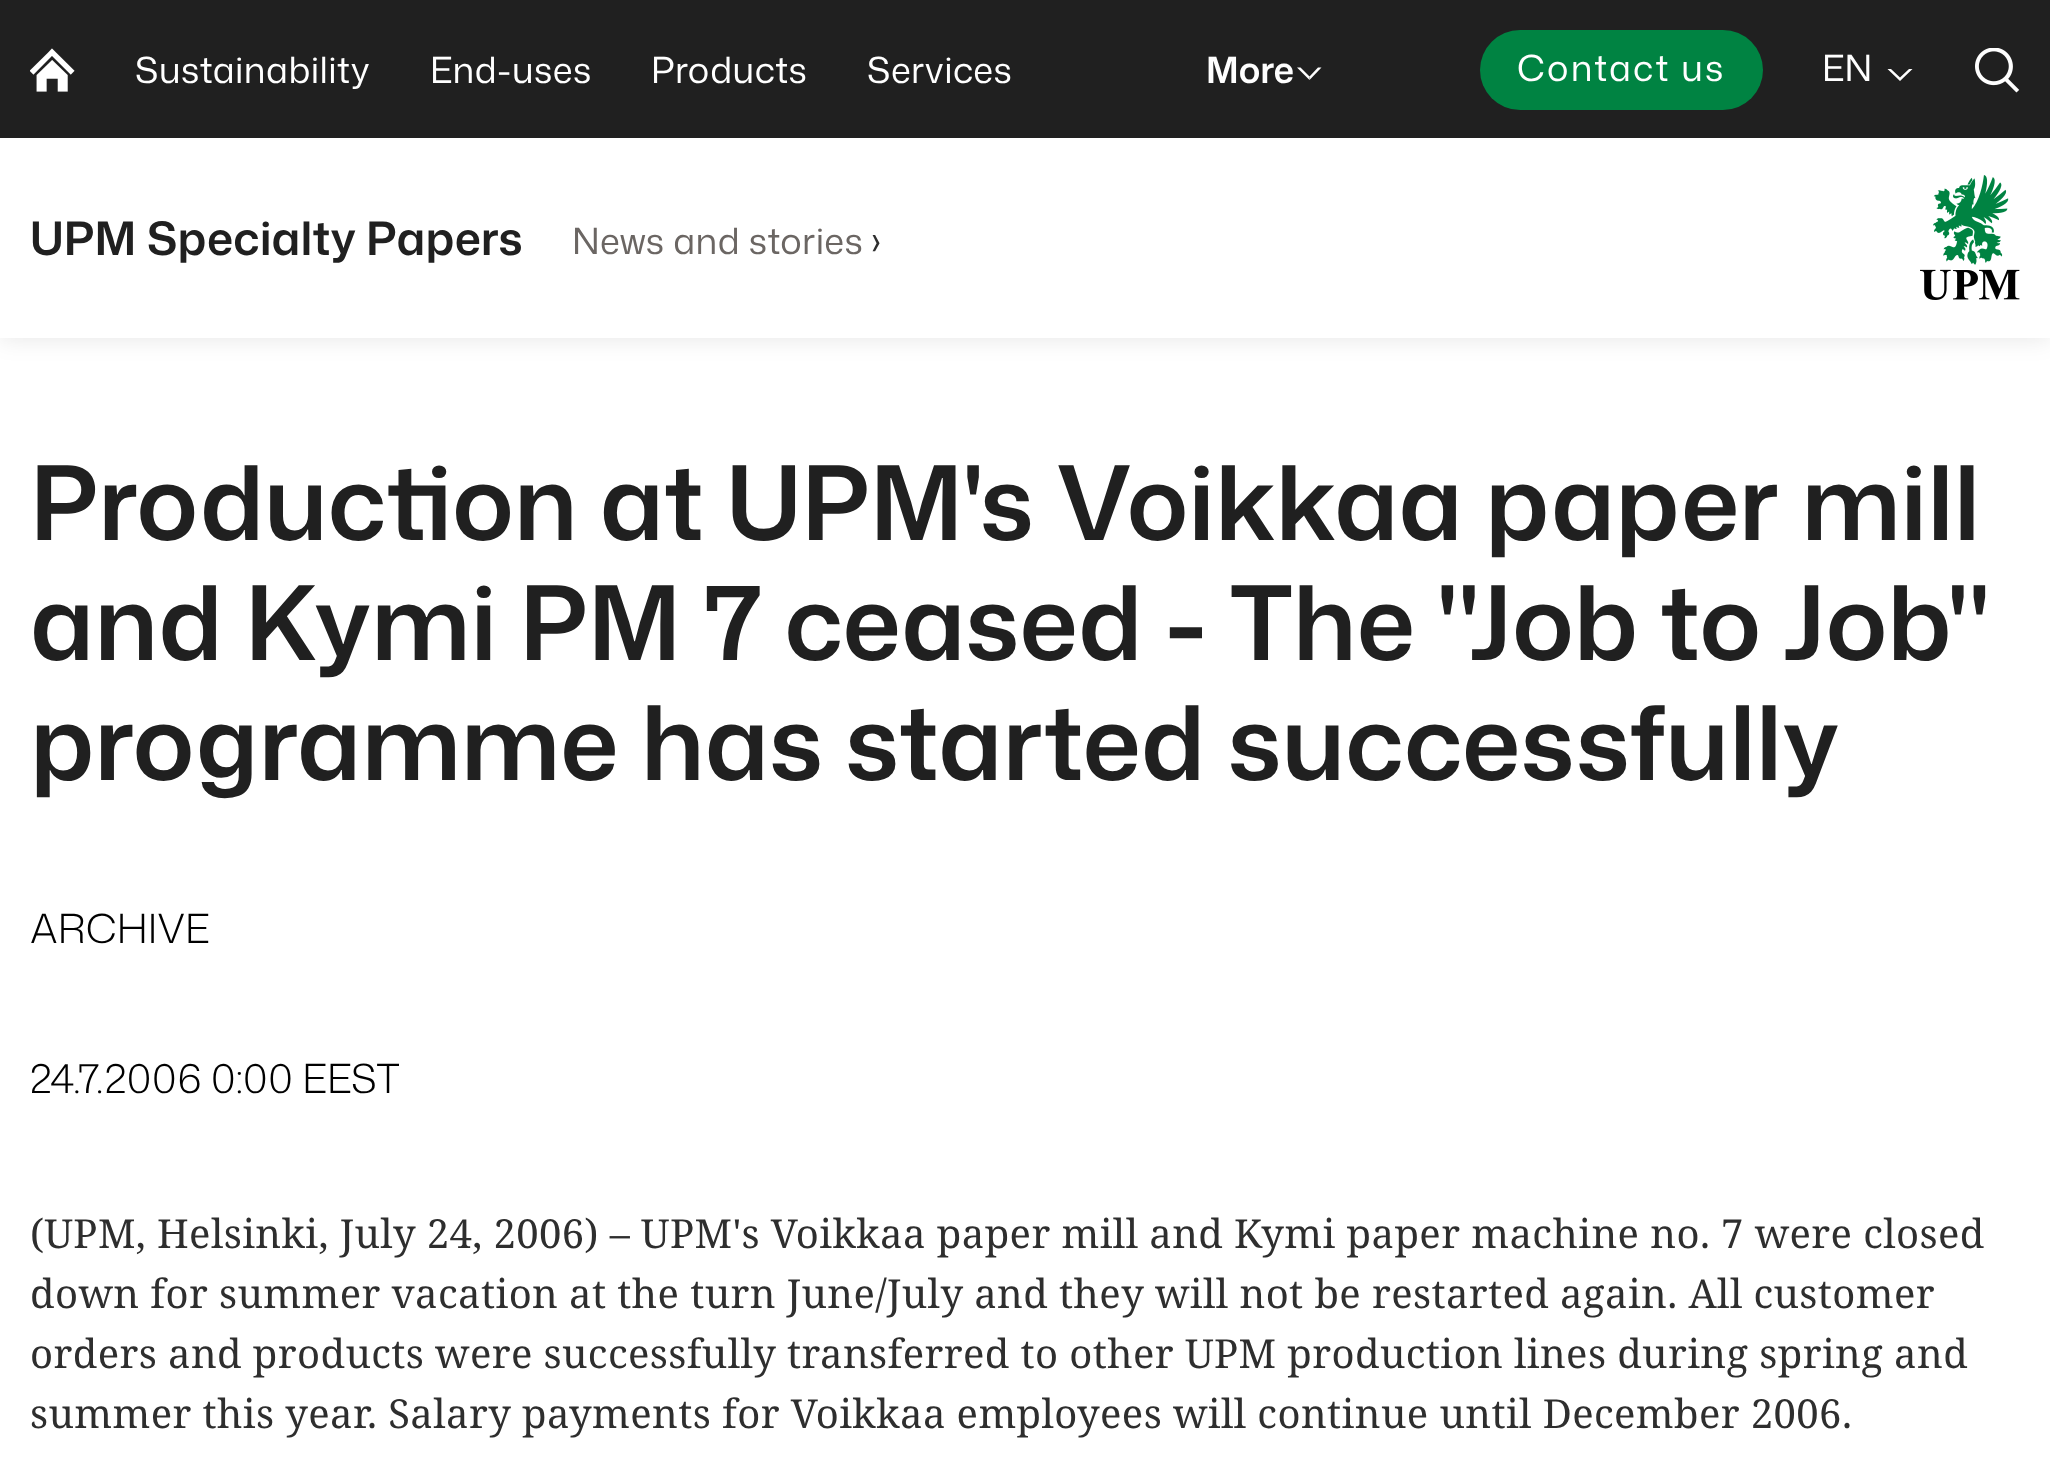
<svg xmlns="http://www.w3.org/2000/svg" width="2050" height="1478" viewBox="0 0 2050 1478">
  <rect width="100%" height="100%" fill="#fff"/>
  <path d="M0 138h2050v200H0z" fill="#0000001a" filter="blur(12.5px)"/>
  <path d="M0 0h2050v138H0z" fill="#202020"/>
  <image x="30" y="48" width="45" height="44" href="img/1.png"/>
  <path d="M1321.5 67.5L1309.5 80V76.5L1318 67.5Z" fill="#fff"/>
  <path d="M1309.5 80L1297 67.5H1300.5L1309.5 76.5Z" fill="#fff"/>
  <rect x="1480" y="30" width="283" height="80" rx="40" fill="#008342"/>
  <path d="M1912.5 69L1900 81V77.5L1909 69ZM1900 81L1887.5 69H1891L1900 77.5Z" fill="#fff"/>
  <image x="1975" y="48" width="45" height="45" href="img/2.png"/>
  <path d="M0 138h2050v200H0z" fill="#fff"/>
  <image x="1920" y="175" width="100" height="125" href="img/3.png"/>
  <g font-family="Mona Sans" font-size="36" letter-spacing="0.4" fill="#fff">
    <text x="135" y="83">Sustainability</text>
    <text x="430" y="83">End-uses</text>
    <text x="651" y="83">Products</text>
    <text x="867" y="83">Services</text>
  </g>
  <text x="1206" y="83" font-family="Mona Sans" font-size="36" font-weight="600" fill="#fff">More</text>
  <text x="1517" y="81" font-family="Mona Sans" font-size="36" letter-spacing="2.25" fill="#fff">Contact us</text>
  <text x="1822" y="81" font-family="Mona Sans" font-size="36" fill="#fff">EN</text>
  <g font-family="Mona Sans" font-size="46" font-weight="600" fill="#202020">
    <text x="30" y="255">UPM</text>
    <text x="147" y="255">Specialty Papers</text>
  </g>
  <text x="572" y="254" font-family="Mona Sans" font-size="36" letter-spacing="0.4" fill="#6b6663">News and stories</text>
  <text x="871" y="254" font-family="Mona Sans" font-size="36" letter-spacing="0.4" fill="#2e2e2e">›</text>
  <g font-family="Mona Sans" font-size="102.5" font-weight="600" fill="#202020">
    <text x="30" y="540">Production at UPM's Voikkaa paper mill</text>
    <text x="30" y="660">and Kymi PM 7 ceased - The "Job to Job"</text>
    <text x="30" y="780">programme has started successfully</text>
  </g>
  <g font-family="Mona Sans" font-size="40" font-weight="300" fill="#000">
    <text x="30" y="943">ARCHIVE</text>
    <text x="30" y="1093">24.7.2006 0:00 EEST</text>
  </g>
  <g font-family="Noto Serif" font-size="40" letter-spacing="0.4" fill="#2e2e2e">
    <text x="30" y="1248">(UPM, Helsinki, July 24, 2006) – UPM's Voikkaa paper mill and Kymi paper machine no. 7 were closed</text>
    <text x="30" y="1308">down for summer vacation at the turn June/July and they will not be restarted again. All customer</text>
    <text x="30" y="1368">orders and products were successfully transferred to other UPM production lines during spring and</text>
    <text x="30" y="1428">summer this year. Salary payments for Voikkaa employees will continue until December 2006.</text>
  </g>
</svg>
